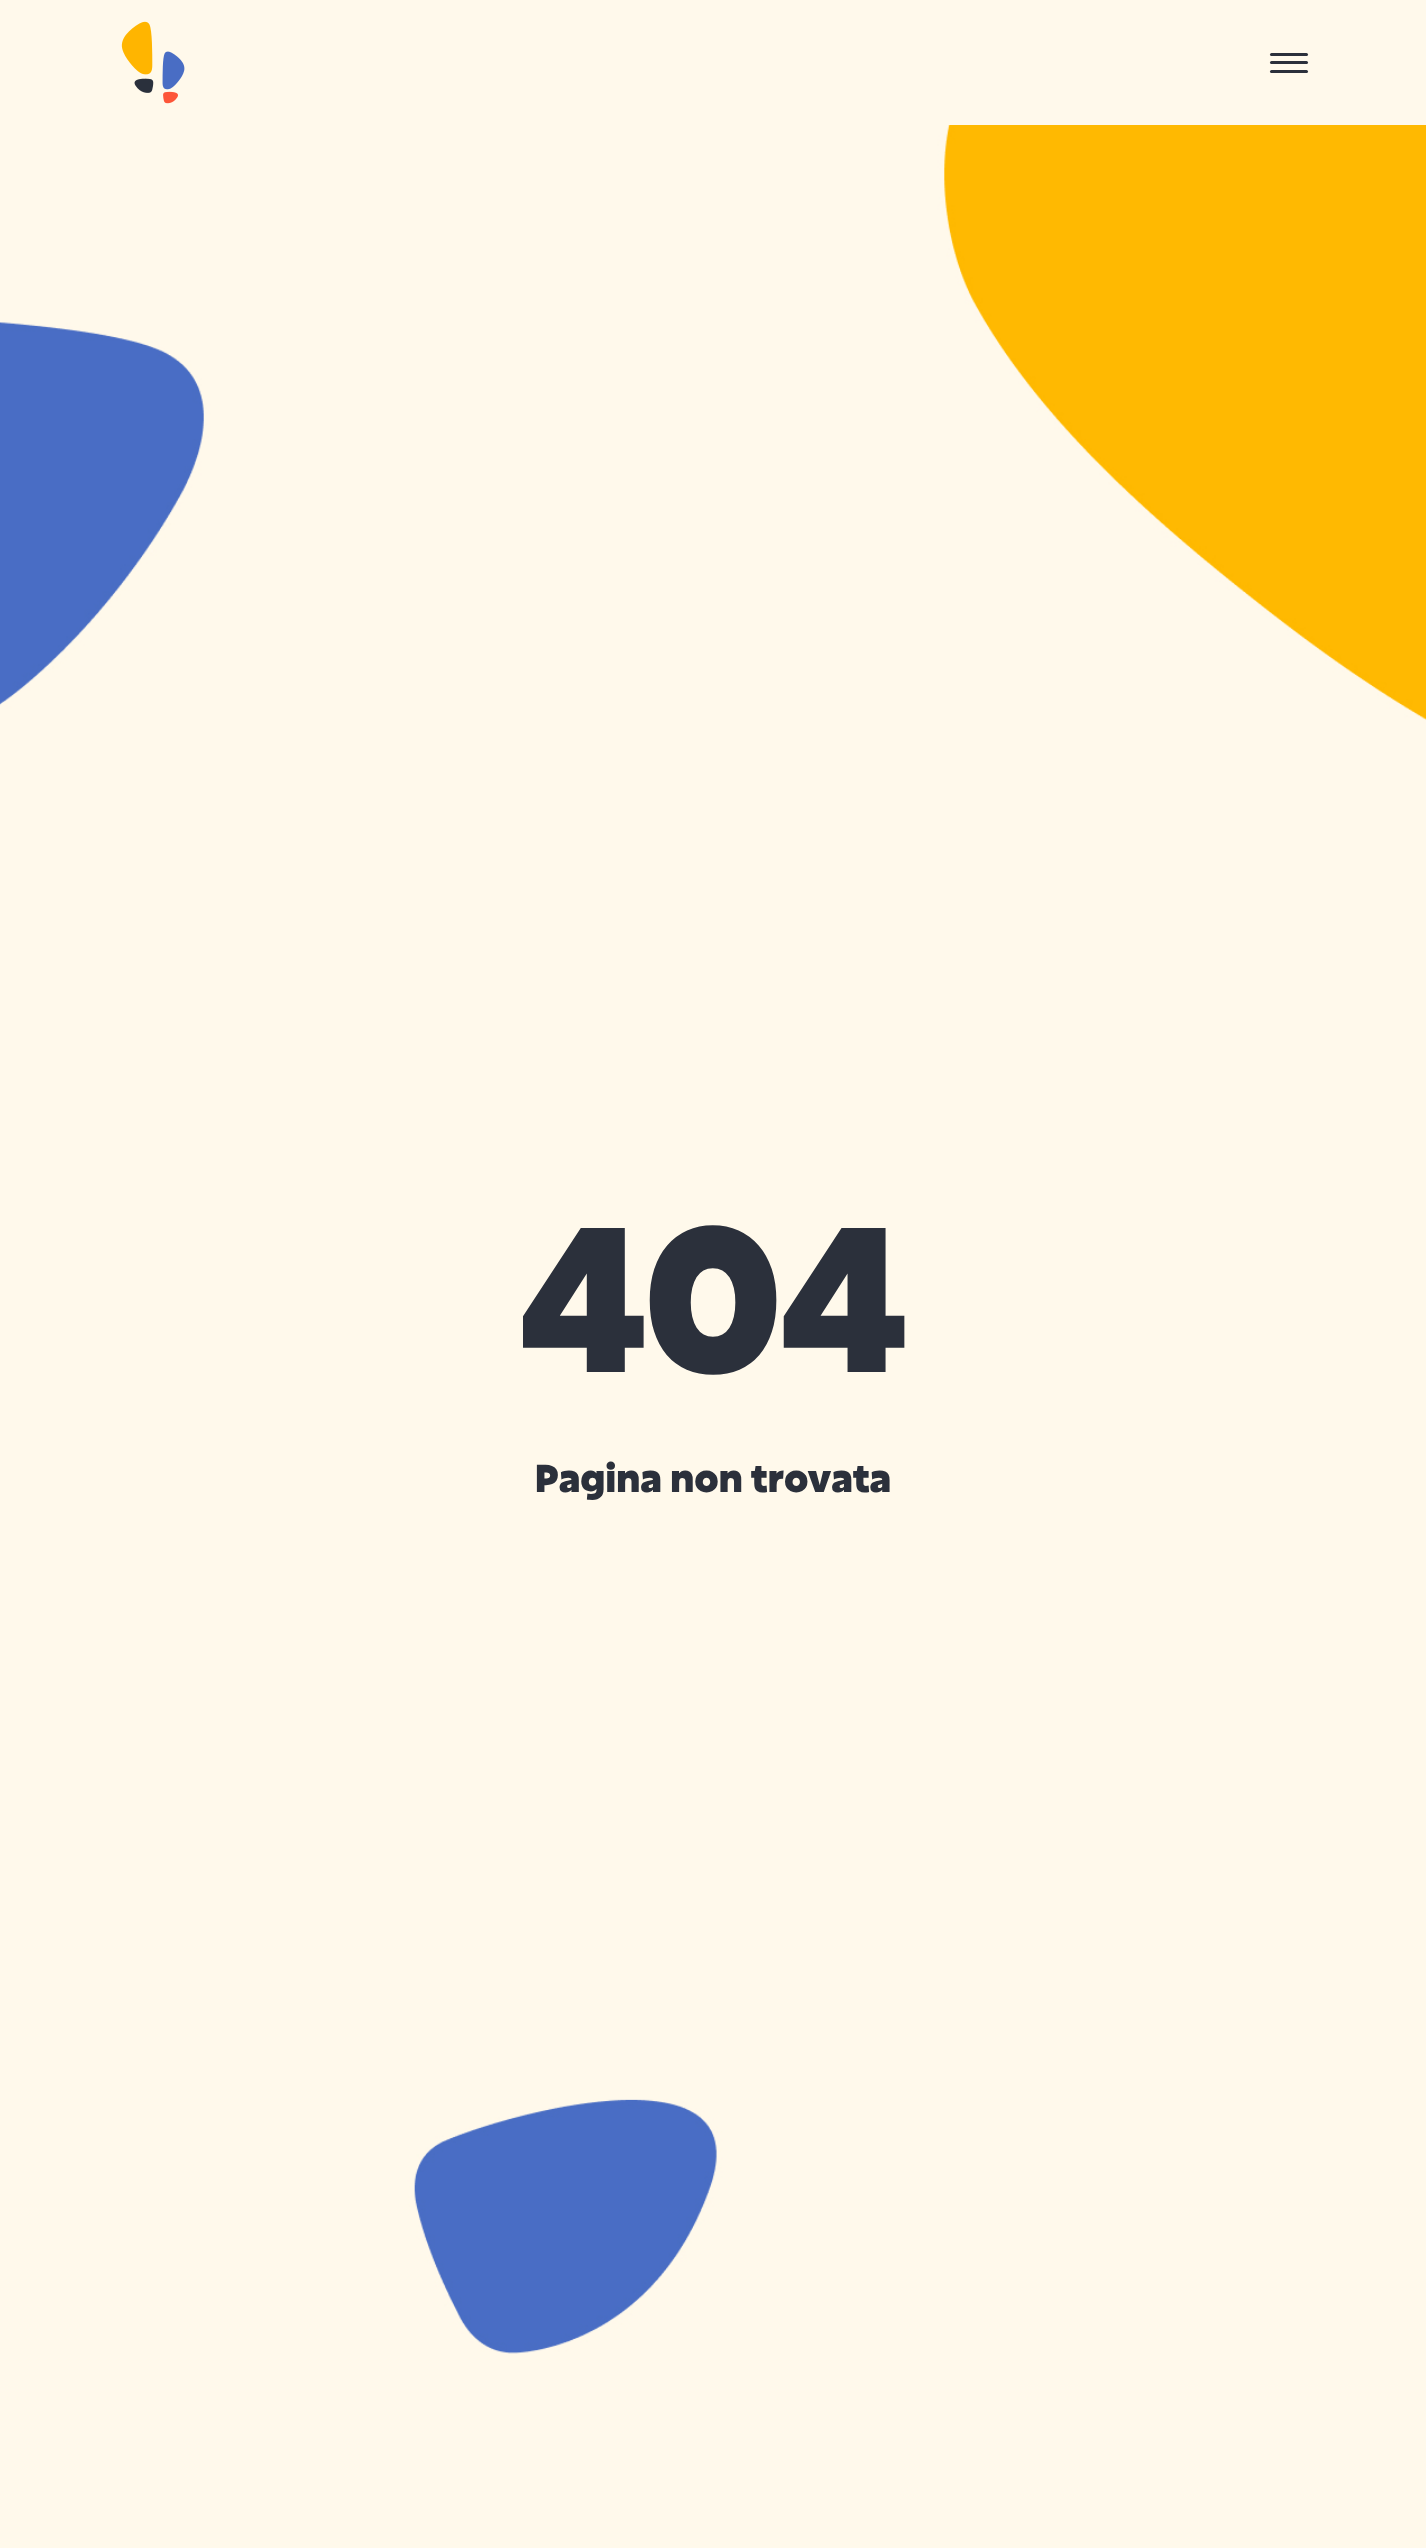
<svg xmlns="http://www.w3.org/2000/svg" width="1426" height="2548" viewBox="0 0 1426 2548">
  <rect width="100%" height="100%" fill="#fff9eb"/>
  <image x="121" y="21" width="64" height="83" href="img/1.png"/>
  <rect x="1270" y="53" width="38" height="3" rx="1.5" fill="#2b303b"/>
  <rect x="1270" y="61" width="38" height="3" rx="1.5" fill="#2b303b"/>
  <rect x="1270" y="70" width="38" height="3" rx="1.5" fill="#2b303b"/>
  <image x="0" y="125" width="1426" height="2229" href="img/2.png"/>
  <text x="521" y="1372" font-family="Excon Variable" font-size="200" font-weight="900" letter-spacing="0.25" fill="#2b303b">404</text>
  <text x="535" y="1492" font-family="Excon Variable" font-size="37.75" font-weight="900" letter-spacing="0.25" fill="#2b303b">Pagina non trovata</text>
</svg>
